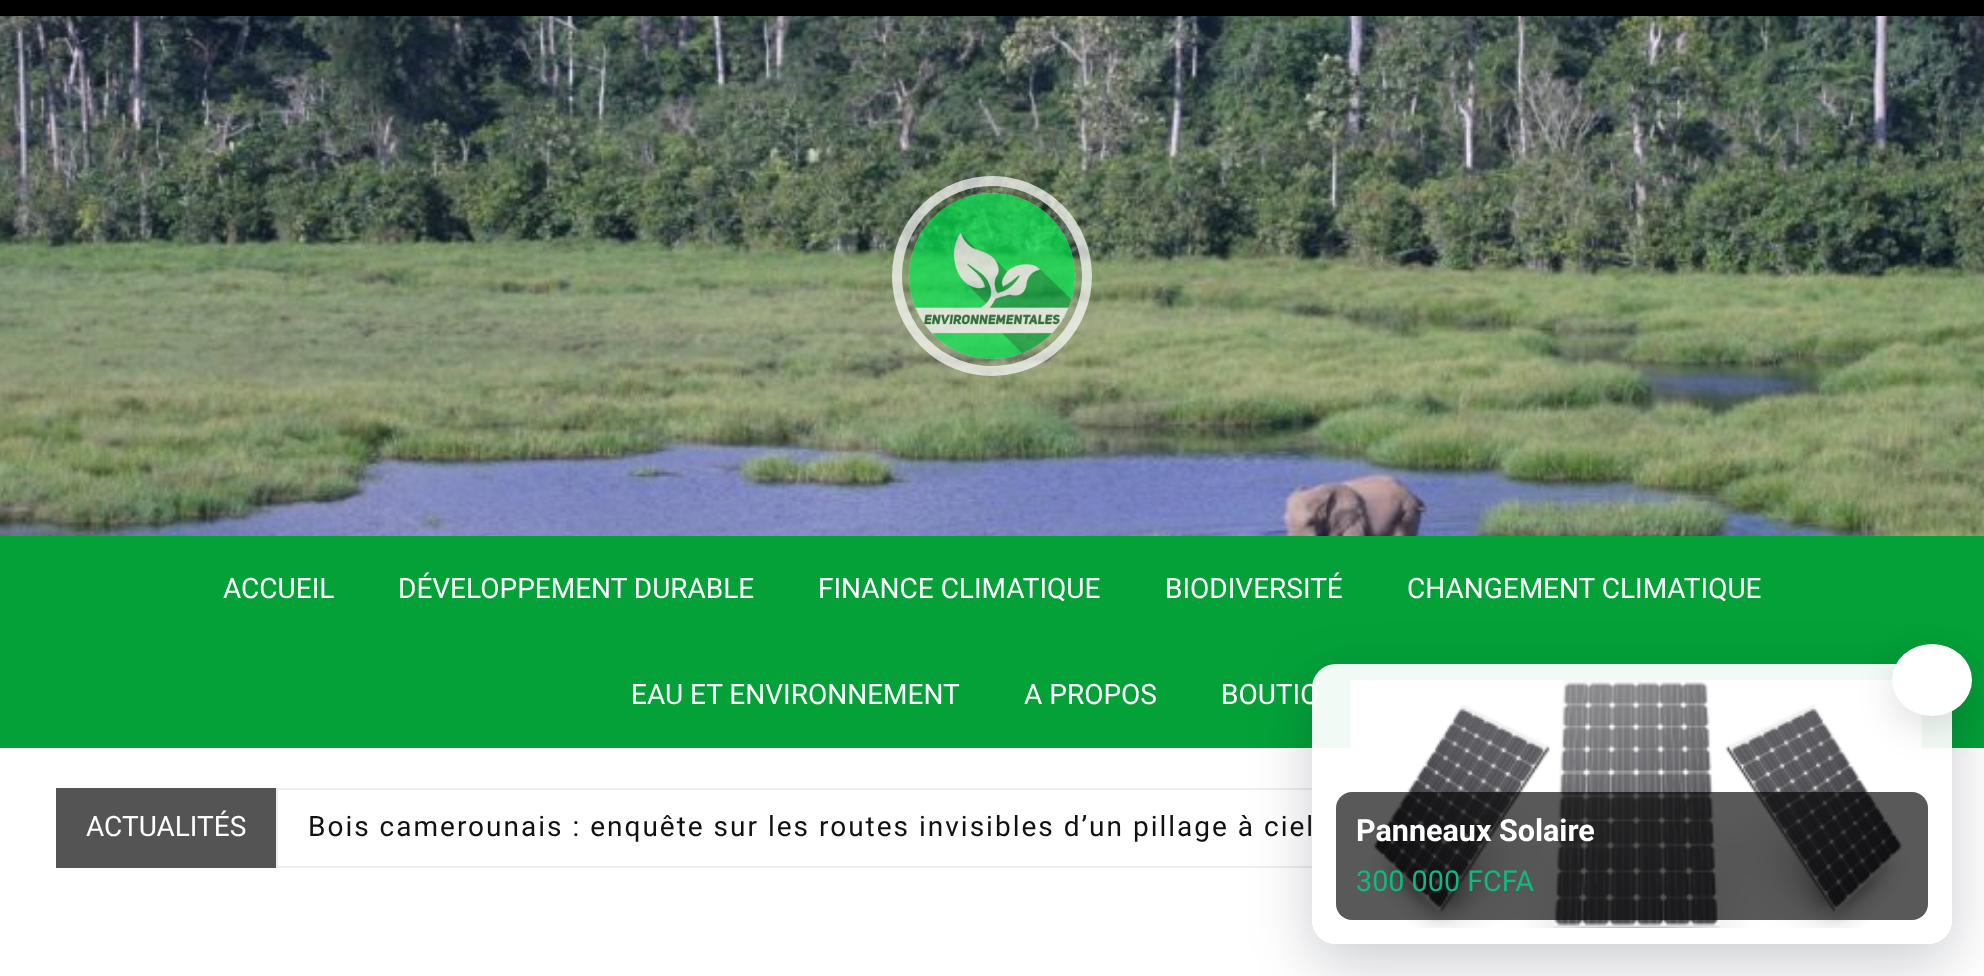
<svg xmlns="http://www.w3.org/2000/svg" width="1984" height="976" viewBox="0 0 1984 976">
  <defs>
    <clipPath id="clip1"><path d="M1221 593H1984V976H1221ZM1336 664H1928C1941.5 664 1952 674.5 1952 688V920C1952 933.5 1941.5 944 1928 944H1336C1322.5 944 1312 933.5 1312 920V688C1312 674.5 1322.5 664 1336 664Z" clip-rule="evenodd"/></clipPath>
  </defs>
  <rect width="100%" height="100%" fill="#fff"/>
  <image x="0" y="16" width="1984" height="520" href="img/1.png"/>
  <path d="M0 0h1984v16H0z" fill="#000"/>
  <circle cx="992" cy="276" r="95" fill="none" stroke="#ffffffb3" stroke-width="10"/>
  <image x="908" y="193" width="168" height="166" href="img/2.png"/>
  <path d="M0 536h1984v212H0z" fill="#04a139"/>
  <path d="M56 788h220v80H56z" fill="#545454"/>
  <path d="M277 789h1650v78H277z" fill="none" stroke="#eee" stroke-width="2"/>
  <path d="M1685 789h242v78H1685z" fill="none" stroke="#eee" stroke-width="2"/>
  <rect x="1846" y="790" width="80" height="76" rx="8" fill="#eee"/>
  <g clip-path="url(#clip1)">
    <rect x="1312" y="684" width="640" height="280" rx="24" fill="#02061733" filter="blur(30px)"/>
  </g>
  <g font-family="Roboto" font-size="28" fill="#fff">
    <text x="223" y="598">ACCUEIL</text>
    <text x="398" y="598">DÉVELOPPEMENT DURABLE</text>
    <text x="818" y="598">FINANCE CLIMATIQUE</text>
    <text x="1165" y="598">BIODIVERSITÉ</text>
    <text x="1407" y="598">CHANGEMENT CLIMATIQUE</text>
    <text x="631" y="704">EAU ET ENVIRONNEMENT</text>
    <text x="1024" y="704">A PROPOS</text>
    <text x="1221" y="704">BOUTIQ</text>
    <text x="86" y="836">ACTUALITÉS</text>
  </g>
  <text x="308" y="836" font-family="Roboto" font-size="28" letter-spacing="2" fill="#111">Bois camerounais : enquête sur les routes invisibles d’un pillage à ciel</text>
  <rect x="1312" y="664" width="640" height="280" rx="24" fill="#fffffff2"/>
  <image x="1350" y="680" width="572" height="248" href="img/3.png"/>
  <rect x="1892" y="656" width="80" height="72" rx="36" fill="#0000001f" filter="blur(18px)"/>
  <ellipse cx="1932" cy="680" rx="40" ry="36" fill="#fff"/>
  <rect x="1336" y="792" width="592" height="128" rx="16" fill="#000000a6"/>
  <text x="1356" y="841" font-family="Roboto" font-size="30.5" font-weight="bold" fill="#fff">Panneaux Solaire</text>
  <text x="1356" y="891" font-family="Roboto" font-size="28.75" fill="#10b981">300 000 FCFA</text>
</svg>
